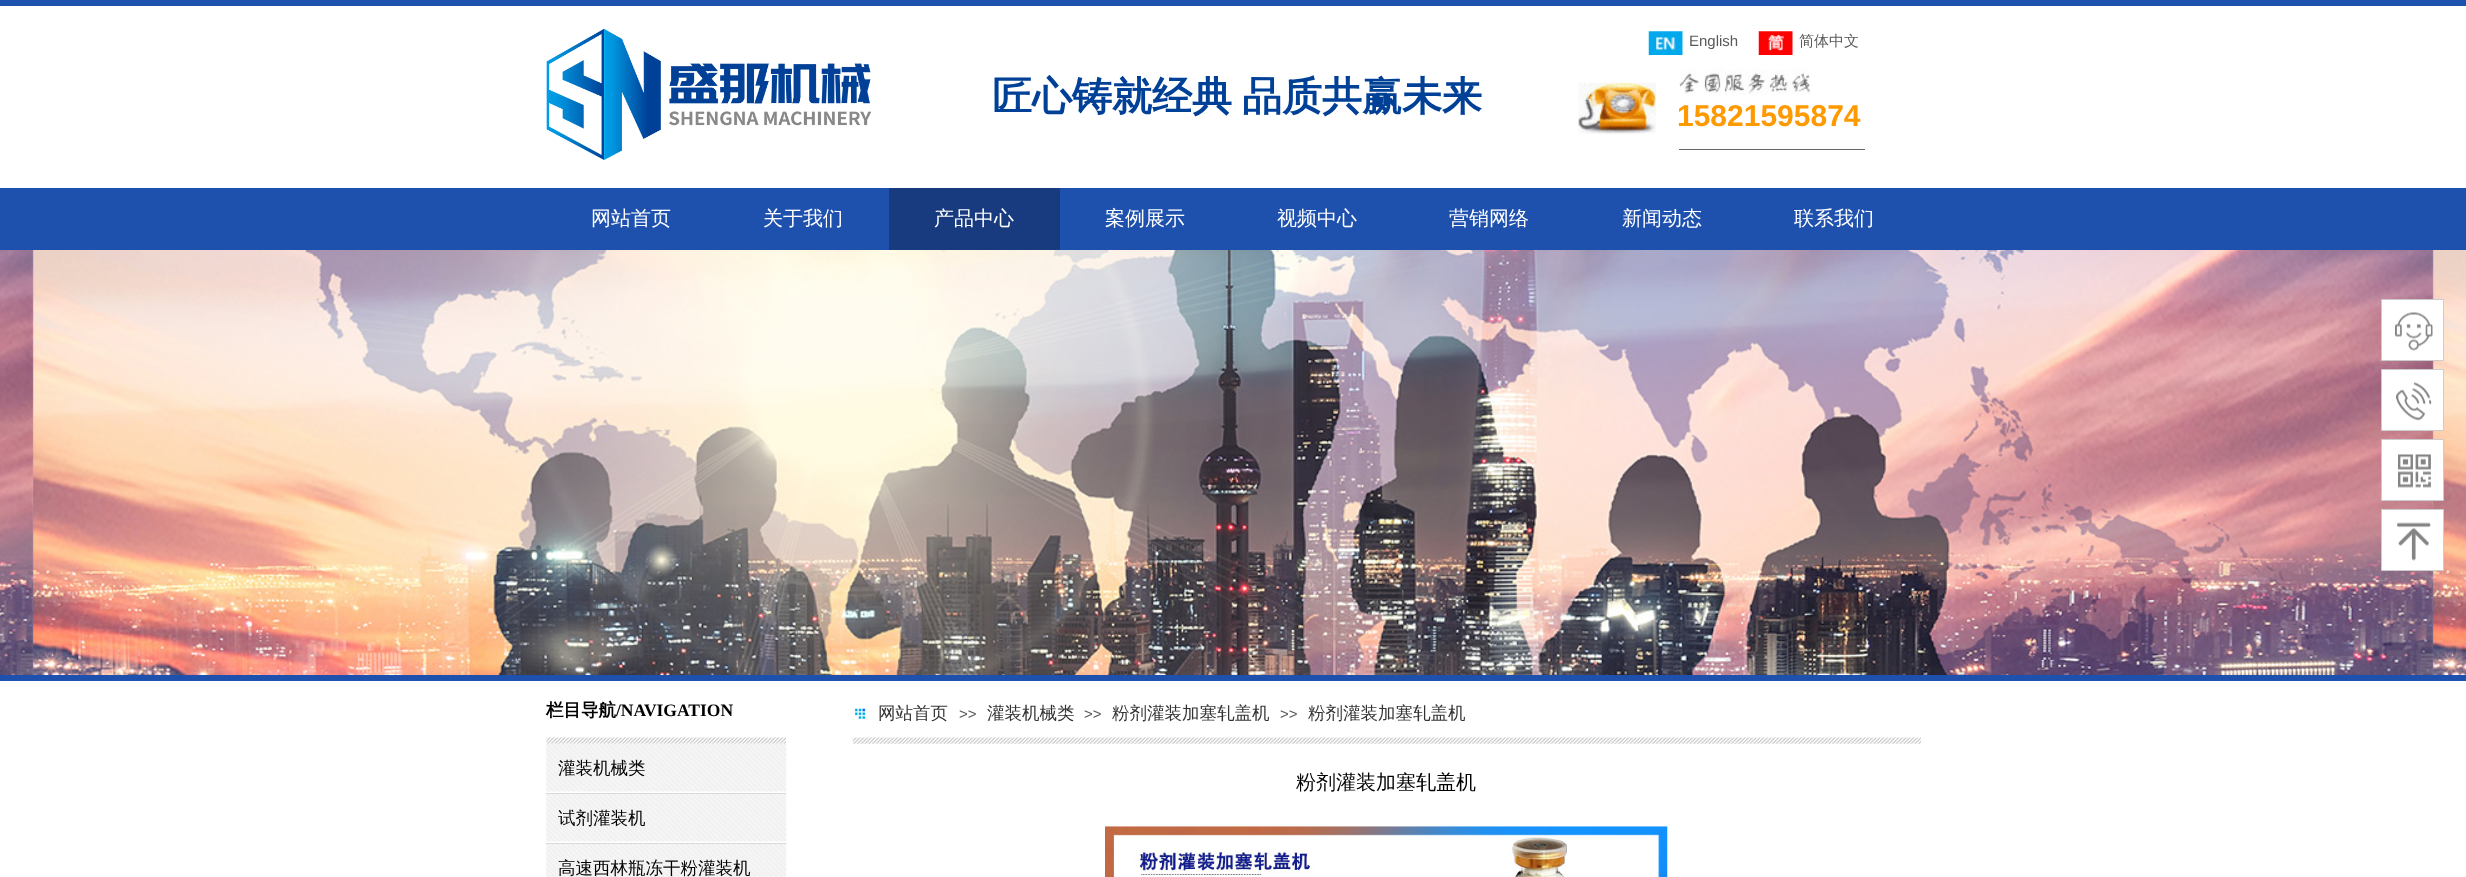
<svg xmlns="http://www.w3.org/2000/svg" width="2466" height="877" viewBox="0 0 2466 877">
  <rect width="100%" height="100%" fill="#fff"/>
  <path d="M0 0h2466v6H0z" fill="#1e50ae"/>
  <image x="546" y="28" width="325" height="132" href="img/1.png"/>
  <image x="1648" y="31" width="35" height="24" href="img/2.png"/>
  <image x="1758" y="31" width="35" height="24" href="img/3.png"/>
  <image x="1578" y="82" width="78" height="52" href="img/4.png"/>
  <image x="1679" y="69" width="131" height="26" href="img/5.png"/>
  <path d="M1679 149h186v1H1679z" fill="#666"/>
  <path d="M0 188h2466v62H0z" fill="#1e50ae"/>
  <path d="M889 188h171v62H889z" fill="#183b80"/>
  <image x="0" y="250" width="2466" height="425" href="img/6.png"/>
  <path d="M0 675h2466v6H0z" fill="#1e50ae"/>
  <image x="854" y="708" width="12" height="11" href="img/7.png"/>
  <image x="546" y="737" width="240" height="7" href="img/8.png"/>
  <image x="852" y="737" width="1069" height="7" href="img/9.png"/>
  <image x="546" y="743" width="241" height="49" href="img/10.png"/>
  <path d="M546 793h240v1H546z" fill="#d0d0d0"/>
  <image x="546" y="793" width="241" height="49" href="img/11.png"/>
  <path d="M546 843h240v1H546z" fill="#d0d0d0"/>
  <image x="546" y="843" width="241" height="34" href="img/12.png"/>
  <image x="1105" y="826" width="563" height="51" href="img/13.png"/>
  <path d="M2381.5 299.5h62v61H2381.5z" fill="#fff" stroke="#ccc"/>
  <image x="2395" y="312" width="38" height="39" href="img/14.png"/>
  <path d="M2381.5 369.5h62v61H2381.5z" fill="#fff" stroke="#ccc"/>
  <image x="2396" y="382" width="36" height="39" href="img/15.png"/>
  <path d="M2381.5 439.5h62v61H2381.5z" fill="#fff" stroke="#ccc"/>
  <image x="2398" y="454" width="33" height="34" href="img/16.png"/>
  <path d="M2381.5 509.5h62v61H2381.5z" fill="#fff" stroke="#ccc"/>
  <image x="2397" y="522" width="34" height="39" href="img/17.png"/>
  <text x="1689" y="46" font-family="Liberation Sans" font-size="15" fill="#5a5a5a">English</text>
  <text x="1799" y="46" font-family="WenQuanYi Zen Hei" font-size="15" font-weight="500" fill="#5a5a5a">简体中文</text>
  <text x="992" y="110" word-spacing="-2" font-family="WenQuanYi Zen Hei" font-size="40" font-weight="bold" fill="#004097">匠心铸就经典 品质共赢未来</text>
  <text x="1677" y="126" font-family="Liberation Sans" font-size="30" font-weight="bold" fill="#f90">15821595874</text>
  <g font-family="WenQuanYi Zen Hei" font-size="20" font-weight="500" fill="#fff">
    <text x="591" y="225">网站首页</text>
    <text x="763" y="225">关于我们</text>
    <text x="934" y="225">产品中心</text>
    <text x="1105" y="225">案例展示</text>
    <text x="1277" y="225">视频中心</text>
    <text x="1449" y="225">营销网络</text>
    <text x="1622" y="225">新闻动态</text>
    <text x="1794" y="225">联系我们</text>
  </g>
  <text x="546" y="716" font-family="WenQuanYi Zen Hei" font-size="17.5" font-weight="bold" fill="#000">栏目导航</text>
  <text x="616" y="716" font-family="Liberation Serif" font-size="17.5" font-weight="bold" fill="#000">/NAVIGATION</text>
  <text x="878" y="719" font-family="WenQuanYi Zen Hei" font-size="17.5" font-weight="500" fill="#333">网站首页</text>
  <text x="959" y="719" font-family="Liberation Sans" font-size="15" fill="#5a5a5a">&gt;&gt;</text>
  <text x="987" y="719" font-family="WenQuanYi Zen Hei" font-size="17.5" font-weight="500" fill="#333">灌装机械类</text>
  <text x="1084" y="719" font-family="Liberation Sans" font-size="15" fill="#5a5a5a">&gt;&gt;</text>
  <text x="1112" y="719" font-family="WenQuanYi Zen Hei" font-size="17.5" font-weight="500" fill="#333">粉剂灌装加塞轧盖机</text>
  <text x="1280" y="719" font-family="Liberation Sans" font-size="15" fill="#5a5a5a">&gt;&gt;</text>
  <text x="1308" y="719" font-family="WenQuanYi Zen Hei" font-size="17.5" font-weight="500" fill="#333">粉剂灌装加塞轧盖机</text>
  <g font-family="WenQuanYi Zen Hei" font-size="17.5" font-weight="500" fill="#000">
    <text x="558" y="774">灌装机械类</text>
    <text x="558" y="824">试剂灌装机</text>
    <text x="558" y="874">高速西林瓶冻干粉灌装机</text>
  </g>
  <text x="1296" y="789" font-family="WenQuanYi Zen Hei" font-size="20" font-weight="500" fill="#000">粉剂灌装加塞轧盖机</text>
</svg>
